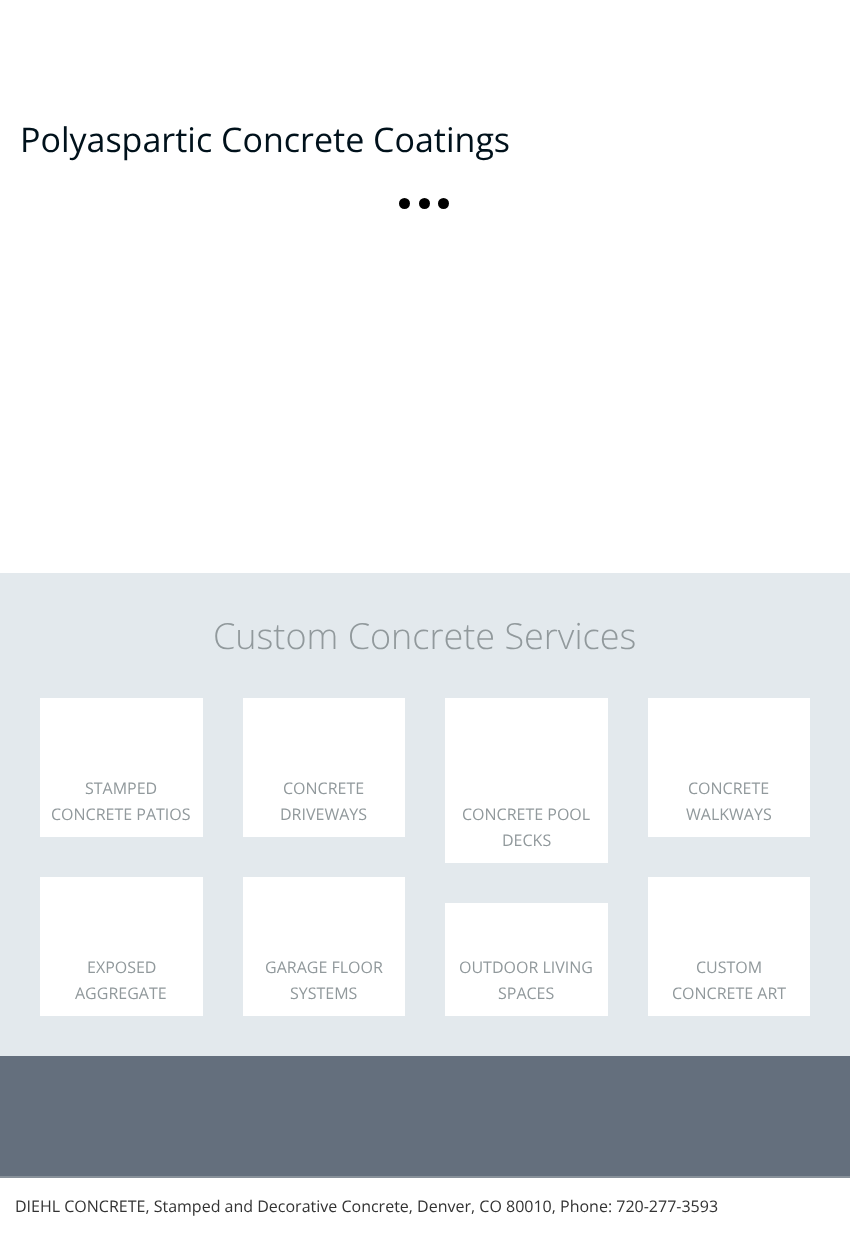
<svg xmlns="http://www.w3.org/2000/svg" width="850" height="1260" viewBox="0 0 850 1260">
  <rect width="100%" height="100%" fill="#fff"/>
  <circle cx="404.5" cy="203.5" r="5.5" fill="#000"/>
  <circle cx="424.5" cy="203.5" r="5.5" fill="#000"/>
  <circle cx="443.5" cy="203.5" r="5.5" fill="#000"/>
  <path d="M0 573h850v483H0z" fill="#e3e9ed"/>
  <path d="M40 698h163v139H40z" fill="#fff"/>
  <path d="M40 877h163v139H40z" fill="#fff"/>
  <path d="M243 698h162v139H243z" fill="#fff"/>
  <path d="M243 877h162v139H243z" fill="#fff"/>
  <path d="M445 698h163v165H445z" fill="#fff"/>
  <path d="M445 903h163v113H445z" fill="#fff"/>
  <path d="M648 698h162v139H648z" fill="#fff"/>
  <path d="M648 877h162v139H648z" fill="#fff"/>
  <path d="M0 1056h850v120H0z" fill="#646f7d"/>
  <path d="M0 1176h850v2H0z" fill="#88919a"/>
  <text x="20" y="152" font-family="Open Sans" font-size="34" fill="#00111b">Polyaspartic Concrete Coatings</text>
  <text x="213" y="649" font-family="Open Sans" font-size="36" font-weight="300" fill="#91999c">Custom Concrete Services</text>
  <g font-family="Open Sans" font-size="16" fill="#91999c">
    <text x="85" y="794">STAMPED</text>
    <text x="51" y="820">CONCRETE PATIOS</text>
    <text x="87" y="973">EXPOSED</text>
    <text x="75" y="999">AGGREGATE</text>
    <text x="283" y="794">CONCRETE</text>
    <text x="280" y="820">DRIVEWAYS</text>
    <text x="265" y="973">GARAGE FLOOR</text>
    <text x="290" y="999">SYSTEMS</text>
    <text x="462" y="820">CONCRETE POOL</text>
    <text x="502" y="846">DECKS</text>
    <text x="459" y="973">OUTDOOR LIVING</text>
    <text x="498" y="999">SPACES</text>
    <text x="688" y="794">CONCRETE</text>
    <text x="686" y="820">WALKWAYS</text>
    <text x="696" y="973">CUSTOM</text>
    <text x="672" y="999">CONCRETE ART</text>
  </g>
  <text x="15" y="1212" font-family="Open Sans" font-size="16" fill="#333">DIEHL CONCRETE, Stamped and Decorative Concrete, Denver, CO 80010, Phone: 720-277-3593</text>
</svg>
